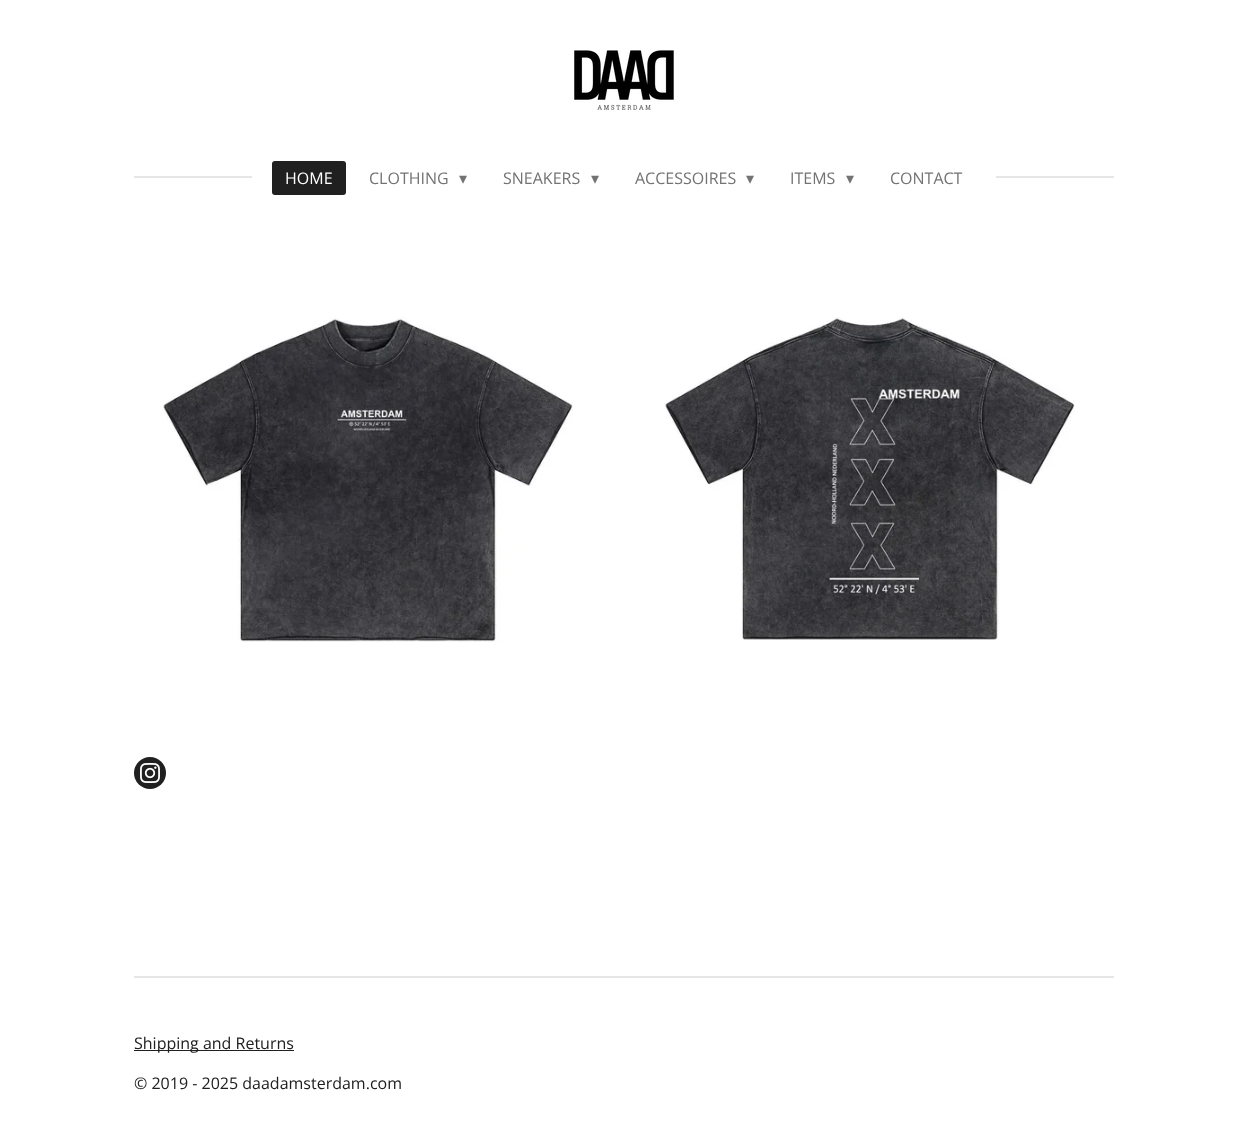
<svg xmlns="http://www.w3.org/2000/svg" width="1248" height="1148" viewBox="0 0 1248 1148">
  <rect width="100%" height="100%" fill="#fff"/>
  <image x="574" y="50" width="100" height="60" href="img/1.png"/>
  <path d="M134 176h118v2H134z" fill="#e6e6e6"/>
  <rect x="272" y="161" width="74" height="34" rx="3" fill="#202020"/>
  <path d="M996 176h118v2H996z" fill="#e6e6e6"/>
  <image x="163" y="317" width="410" height="325" href="img/2.png"/>
  <image x="664" y="317" width="411" height="323" href="img/3.png"/>
  <circle cx="150" cy="773" r="16" fill="#202020"/>
  <image x="140" y="763" width="20" height="20" href="img/4.png"/>
  <path d="M134 976h980v2H134z" fill="#e6e6e6"/>
  <path d="M134 1050h160v1H134z" fill="#202020"/>
  <text x="285" y="184" font-family="Open Sans" font-size="16" fill="#fff">HOME</text>
  <text x="369" y="184" font-family="Open Sans" font-size="16" fill="#737373">CLOTHING</text>
  <text x="459" y="184" font-family="DejaVu Sans" font-size="16" fill="#737373">▾</text>
  <text x="503" y="184" font-family="Open Sans" font-size="16" fill="#737373">SNEAKERS</text>
  <text x="591" y="184" font-family="DejaVu Sans" font-size="16" fill="#737373">▾</text>
  <text x="635" y="184" font-family="Open Sans" font-size="16" fill="#737373">ACCESSOIRES</text>
  <text x="746" y="184" font-family="DejaVu Sans" font-size="16" fill="#737373">▾</text>
  <text x="790" y="184" font-family="Open Sans" font-size="16" fill="#737373">ITEMS</text>
  <text x="846" y="184" font-family="DejaVu Sans" font-size="16" fill="#737373">▾</text>
  <text x="890" y="184" font-family="Open Sans" font-size="16" fill="#737373">CONTACT</text>
  <g font-family="Open Sans" font-size="16" fill="#202020">
    <text x="134" y="1049">Shipping and Returns</text>
    <text x="134" y="1089">© 2019 - 2025 daadamsterdam.com</text>
  </g>
</svg>
